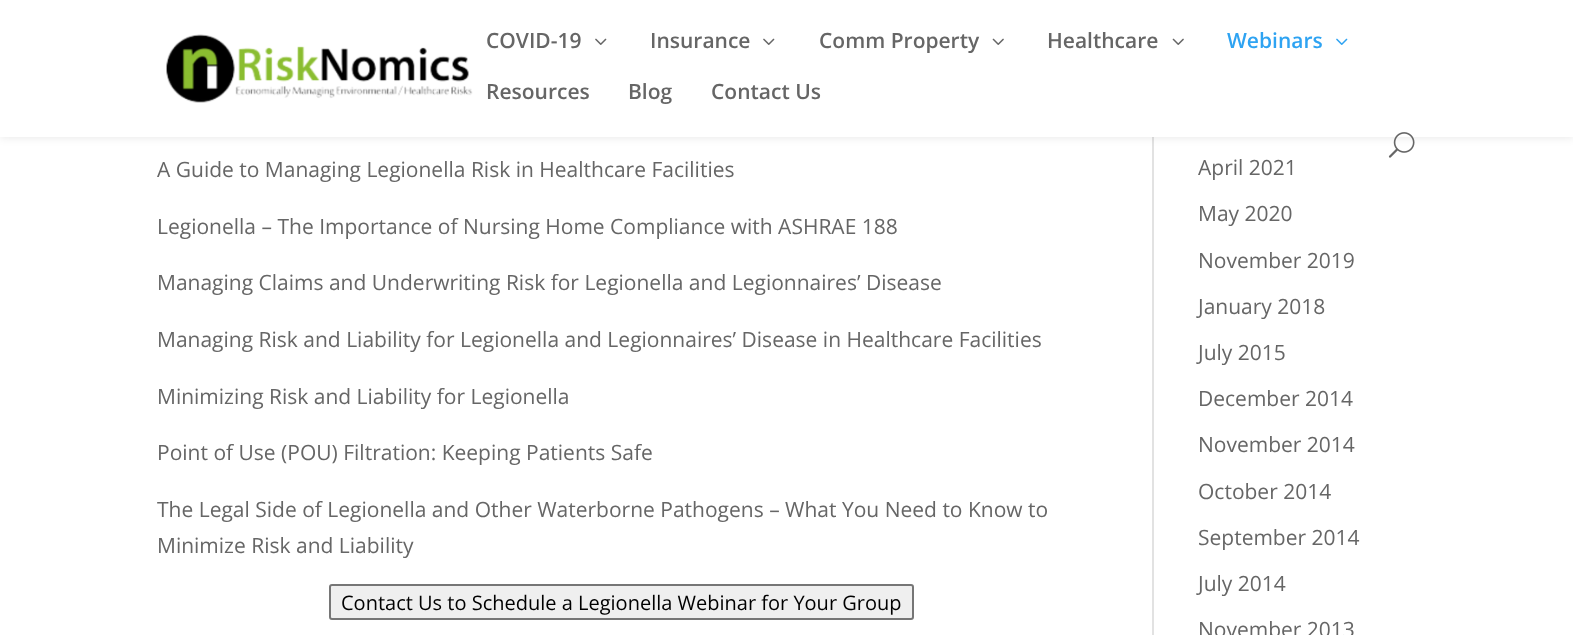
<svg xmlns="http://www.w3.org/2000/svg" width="1573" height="635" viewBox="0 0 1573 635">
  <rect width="100%" height="100%" fill="#fff"/>
  <path d="M1152 137h2v498H1152z" fill="#e2e2e2"/>
  <path d="M0 0h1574v137H0z" fill="#0000001a" filter="blur(5px)"/>
  <path d="M0 0h1573v137H0z" fill="#fff"/>
  <image x="166" y="34" width="307" height="69" href="img/1.png"/>
  <image x="595" y="38" width="12" height="7" href="img/2.png"/>
  <image x="763" y="38" width="12" height="7" href="img/2.png"/>
  <image x="992" y="38" width="12" height="7" href="img/3.png"/>
  <image x="1172" y="38" width="12" height="7" href="img/3.png"/>
  <image x="1336" y="38" width="12" height="7" href="img/4.png"/>
  <image x="1388" y="132" width="27" height="26" href="img/5.png"/>
  <rect x="330" y="585" width="583" height="34" rx="2" fill="#efefef" stroke="#767676" stroke-width="2"/>
  <g font-family="Open Sans" font-size="21" font-weight="600" fill="#666">
    <text x="486" y="48">COVID-19</text>
    <text x="650" y="48">Insurance</text>
    <text x="819" y="48">Comm Property</text>
    <text x="1047" y="48">Healthcare</text>
  </g>
  <text x="1227" y="48" font-family="Open Sans" font-size="21" font-weight="600" fill="#2ea3f2">Webinars</text>
  <g font-family="Open Sans" font-size="21" font-weight="600" fill="#666">
    <text x="486" y="99">Resources</text>
    <text x="628" y="99">Blog</text>
    <text x="711" y="99">Contact Us</text>
  </g>
  <g font-family="Open Sans" font-size="21" fill="#666">
    <text x="157" y="177">A Guide to Managing Legionella Risk in Healthcare Facilities</text>
    <text x="157" y="234">Legionella – The Importance of Nursing Home Compliance with ASHRAE 188</text>
    <text x="157" y="290">Managing Claims and Underwriting Risk for Legionella and Legionnaires’ Disease</text>
    <text x="157" y="347">Managing Risk and Liability for Legionella and Legionnaires’ Disease in Healthcare Facilities</text>
    <text x="157" y="404">Minimizing Risk and Liability for Legionella</text>
    <text x="157" y="460">Point of Use (POU) Filtration: Keeping Patients Safe</text>
    <text x="157" y="517">The Legal Side of Legionella and Other Waterborne Pathogens – What You Need to Know to</text>
    <text x="157" y="553">Minimize Risk and Liability</text>
  </g>
  <text x="341" y="610" font-family="Open Sans" font-size="20" fill="#000">Contact Us to Schedule a Legionella Webinar for Your Group</text>
  <g font-family="Open Sans" font-size="21" fill="#666">
    <text x="1198" y="175">April 2021</text>
    <text x="1198" y="221">May 2020</text>
    <text x="1198" y="268">November 2019</text>
    <text x="1198" y="314">January 2018</text>
    <text x="1198" y="360">July 2015</text>
    <text x="1198" y="406">December 2014</text>
    <text x="1198" y="452">November 2014</text>
    <text x="1198" y="499">October 2014</text>
    <text x="1198" y="545">September 2014</text>
    <text x="1198" y="591">July 2014</text>
    <text x="1198" y="637">November 2013</text>
  </g>
</svg>
